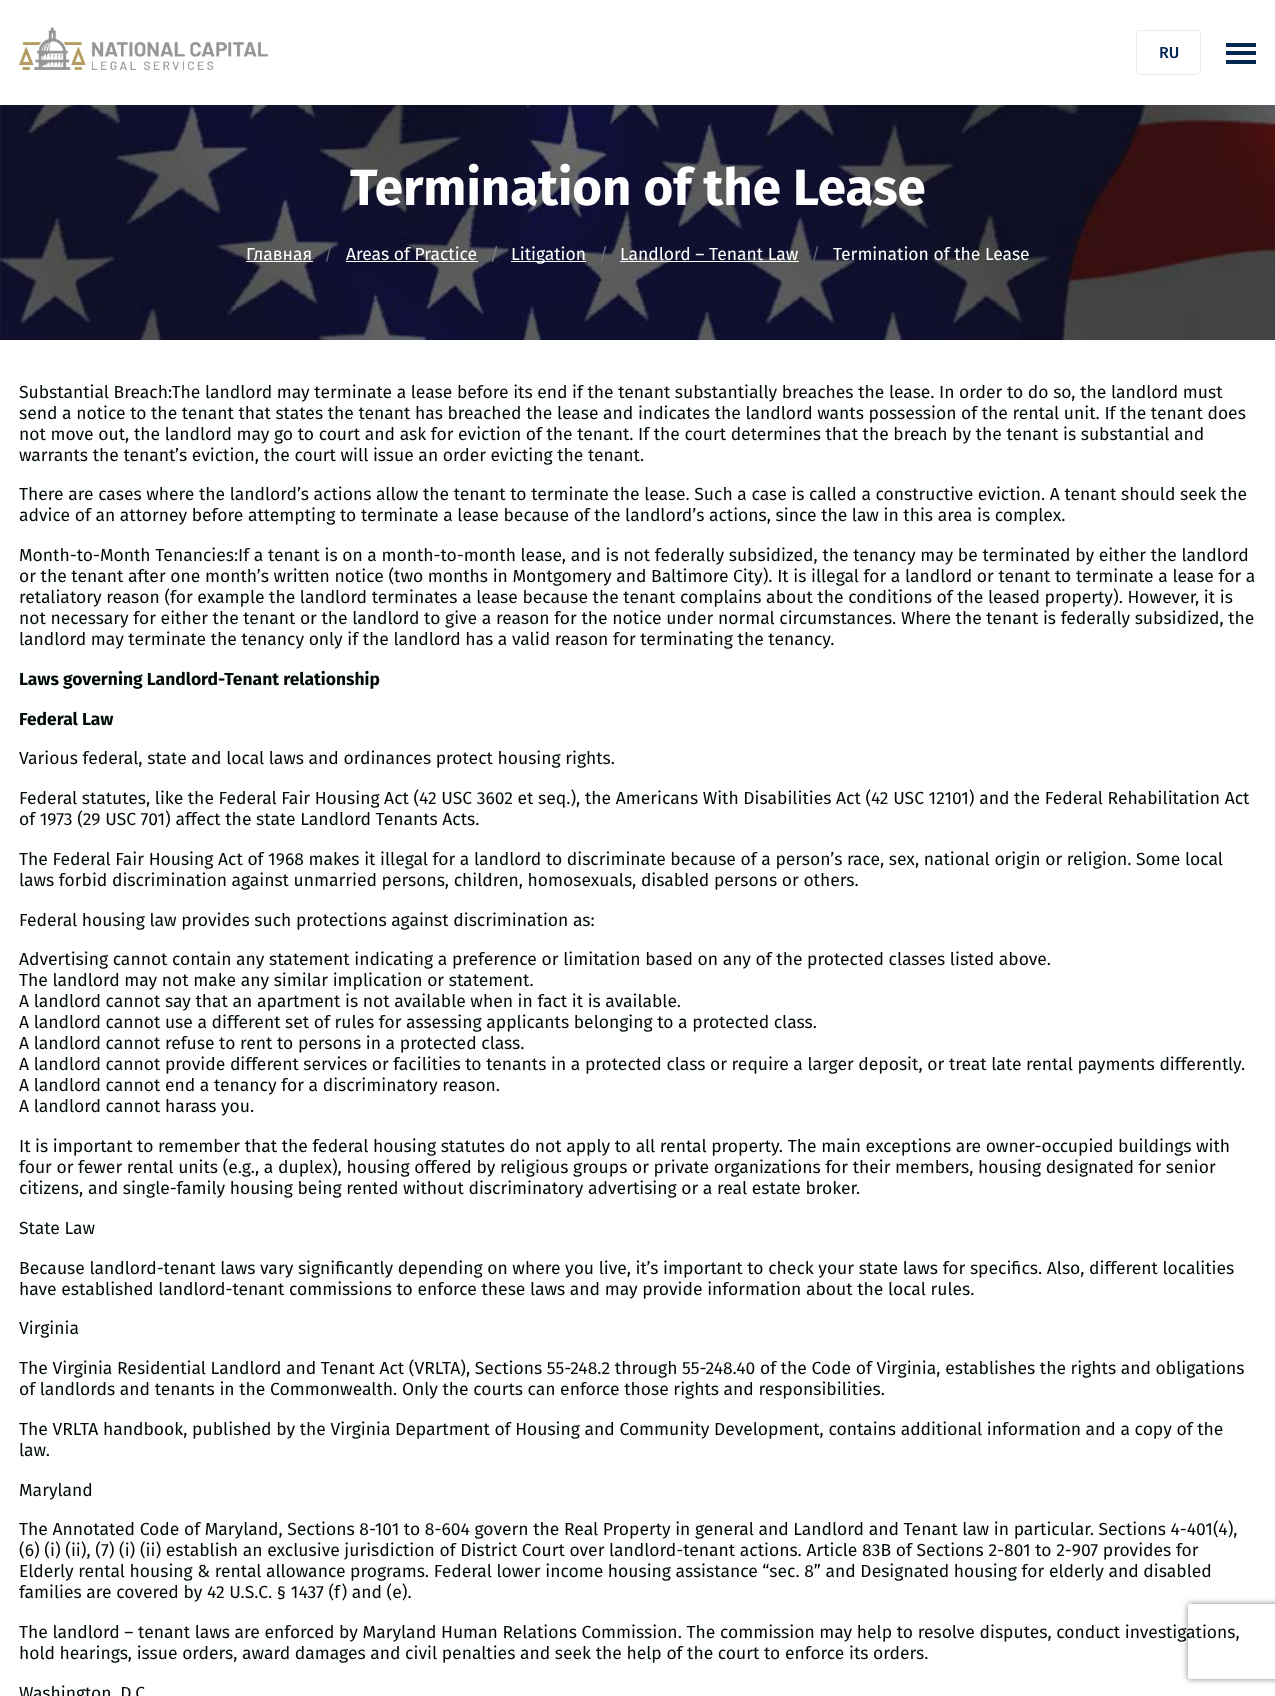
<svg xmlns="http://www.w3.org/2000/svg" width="1275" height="1696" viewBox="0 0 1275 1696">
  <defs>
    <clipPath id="clip1"><path d="M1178 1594H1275V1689H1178ZM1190.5 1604H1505.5C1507 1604 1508 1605 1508 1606.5V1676.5C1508 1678 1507 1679 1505.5 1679H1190.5C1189 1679 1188 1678 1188 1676.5V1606.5C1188 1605 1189 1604 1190.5 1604Z" clip-rule="evenodd"/></clipPath>
  </defs>
  <rect width="100%" height="100%" fill="#fff"/>
  <image x="18" y="27" width="250" height="43" href="img/1.png"/>
  <rect x="1136.5" y="30.5" width="64" height="44" rx="4.5" fill="none" stroke="#e8e8e8"/>
  <path d="M1226 43h30v4H1226z" fill="#012852"/>
  <path d="M1226 51h30v4H1226z" fill="#012852"/>
  <path d="M1226 60h30v4H1226z" fill="#012852"/>
  <image x="0" y="105" width="1275" height="235" href="img/2.png"/>
  <path d="M246 261h67v1H246z" fill="#fff"/>
  <path d="M346 261h132v1H346z" fill="#fff"/>
  <path d="M511 261h75v1H511z" fill="#fff"/>
  <path d="M620 261h179v1H620z" fill="#fff"/>
  <g clip-path="url(#clip1)">
    <rect x="1188" y="1604" width="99" height="75" rx="2.5" fill="#808080" filter="blur(3px)"/>
  </g>
  <text x="1159" y="58" font-family="Fira Sans" font-size="16" font-weight="500" fill="#012852">RU</text>
  <text x="350" y="205" font-family="Fira Sans" font-size="51" font-weight="bold" fill="#fff">Termination of the Lease</text>
  <text x="246" y="260" font-family="Fira Sans" font-size="17.5" fill="#fff">Главная</text>
  <text x="324" y="260" font-family="Fira Sans" font-size="17.5" fill="#616175">/</text>
  <text x="346" y="260" font-family="Fira Sans" font-size="17.5" fill="#fff">Areas of Practice</text>
  <text x="490" y="260" font-family="Fira Sans" font-size="17.5" fill="#7e7e87">/</text>
  <text x="511" y="260" font-family="Fira Sans" font-size="17.5" fill="#fff">Litigation</text>
  <text x="599" y="260" font-family="Fira Sans" font-size="17.5" fill="#71727d">/</text>
  <text x="620" y="260" font-family="Fira Sans" font-size="17.5" fill="#fff">Landlord – Tenant Law</text>
  <text x="811" y="260" font-family="Fira Sans" font-size="17.5" fill="#616175">/</text>
  <text x="833" y="260" font-family="Fira Sans" font-size="17.5" fill="#fff">Termination of the Lease</text>
  <g font-family="Fira Sans" font-size="17.5" fill="#010b05">
    <text x="19" y="398">Substantial Breach:The landlord may terminate a lease before its end if the tenant substantially breaches the lease. In order to do so, the landlord must</text>
    <text x="19" y="419">send a notice to the tenant that states the tenant has breached the lease and indicates the landlord wants possession of the rental unit. If the tenant does</text>
    <text x="19" y="440">not move out, the landlord may go to court and ask for eviction of the tenant. If the court determines that the breach by the tenant is substantial and</text>
    <text x="19" y="461">warrants the tenant’s eviction, the court will issue an order evicting the tenant.</text>
    <text x="19" y="500">There are cases where the landlord’s actions allow the tenant to terminate the lease. Such a case is called a constructive eviction. A tenant should seek the</text>
    <text x="19" y="521">advice of an attorney before attempting to terminate a lease because of the landlord’s actions, since the law in this area is complex.</text>
    <text x="19" y="561">Month-to-Month Tenancies:If a tenant is on a month-to-month lease, and is not federally subsidized, the tenancy may be terminated by either the landlord</text>
    <text x="19" y="582">or the tenant after one month’s written notice (two months in Montgomery and Baltimore City). It is illegal for a landlord or tenant to terminate a lease for a</text>
    <text x="19" y="603">retaliatory reason (for example the landlord terminates a lease because the tenant complains about the conditions of the leased property). However, it is</text>
    <text x="19" y="624">not necessary for either the tenant or the landlord to give a reason for the notice under normal circumstances. Where the tenant is federally subsidized, the</text>
    <text x="19" y="645">landlord may terminate the tenancy only if the landlord has a valid reason for terminating the tenancy.</text>
  </g>
  <g font-family="Fira Sans" font-size="17.5" font-weight="bold" fill="#010b05">
    <text x="19" y="685">Laws governing Landlord-Tenant relationship</text>
    <text x="19" y="725">Federal Law</text>
  </g>
  <g font-family="Fira Sans" font-size="17.5" fill="#010b05">
    <text x="19" y="764">Various federal, state and local laws and ordinances protect housing rights.</text>
    <text x="19" y="804">Federal statutes, like the Federal Fair Housing Act (42 USC 3602 et seq.), the Americans With Disabilities Act (42 USC 12101) and the Federal Rehabilitation Act</text>
    <text x="19" y="825">of 1973 (29 USC 701) affect the state Landlord Tenants Acts.</text>
    <text x="19" y="865">The Federal Fair Housing Act of 1968 makes it illegal for a landlord to discriminate because of a person’s race, sex, national origin or religion. Some local</text>
    <text x="19" y="886">laws forbid discrimination against unmarried persons, children, homosexuals, disabled persons or others.</text>
    <text x="19" y="926">Federal housing law provides such protections against discrimination as:</text>
    <text x="19" y="965">Advertising cannot contain any statement indicating a preference or limitation based on any of the protected classes listed above.</text>
    <text x="19" y="986">The landlord may not make any similar implication or statement.</text>
    <text x="19" y="1007">A landlord cannot say that an apartment is not available when in fact it is available.</text>
    <text x="19" y="1028">A landlord cannot use a different set of rules for assessing applicants belonging to a protected class.</text>
    <text x="19" y="1049">A landlord cannot refuse to rent to persons in a protected class.</text>
    <text x="19" y="1070">A landlord cannot provide different services or facilities to tenants in a protected class or require a larger deposit, or treat late rental payments differently.</text>
    <text x="19" y="1091">A landlord cannot end a tenancy for a discriminatory reason.</text>
    <text x="19" y="1112">A landlord cannot harass you.</text>
    <text x="19" y="1152">It is important to remember that the federal housing statutes do not apply to all rental property. The main exceptions are owner-occupied buildings with</text>
    <text x="19" y="1173">four or fewer rental units (e.g., a duplex), housing offered by religious groups or private organizations for their members, housing designated for senior</text>
    <text x="19" y="1194">citizens, and single-family housing being rented without discriminatory advertising or a real estate broker.</text>
    <text x="19" y="1234">State Law</text>
    <text x="19" y="1274">Because landlord-tenant laws vary significantly depending on where you live, it’s important to check your state laws for specifics. Also, different localities</text>
    <text x="19" y="1295">have established landlord-tenant commissions to enforce these laws and may provide information about the local rules.</text>
    <text x="19" y="1334">Virginia</text>
    <text x="19" y="1374">The Virginia Residential Landlord and Tenant Act (VRLTA), Sections 55-248.2 through 55-248.40 of the Code of Virginia, establishes the rights and obligations</text>
    <text x="19" y="1395">of landlords and tenants in the Commonwealth. Only the courts can enforce those rights and responsibilities.</text>
    <text x="19" y="1435">The VRLTA handbook, published by the Virginia Department of Housing and Community Development, contains additional information and a copy of the</text>
    <text x="19" y="1456">law.</text>
    <text x="19" y="1496">Maryland</text>
    <text x="19" y="1535">The Annotated Code of Maryland, Sections 8-101 to 8-604 govern the Real Property in general and Landlord and Tenant law in particular. Sections 4-401(4),</text>
    <text x="19" y="1556">(6) (i) (ii), (7) (i) (ii) establish an exclusive jurisdiction of District Court over landlord-tenant actions. Article 83B of Sections 2-801 to 2-907 provides for</text>
    <text x="19" y="1577">Elderly rental housing &amp; rental allowance programs. Federal lower income housing assistance “sec. 8” and Designated housing for elderly and disabled</text>
    <text x="19" y="1598">families are covered by 42 U.S.C. § 1437 (f) and (e).</text>
    <text x="19" y="1638">The landlord – tenant laws are enforced by Maryland Human Relations Commission. The commission may help to resolve disputes, conduct investigations,</text>
    <text x="19" y="1659">hold hearings, issue orders, award damages and civil penalties and seek the help of the court to enforce its orders.</text>
    <text x="19" y="1699">Washington, D.C</text>
  </g>
</svg>
